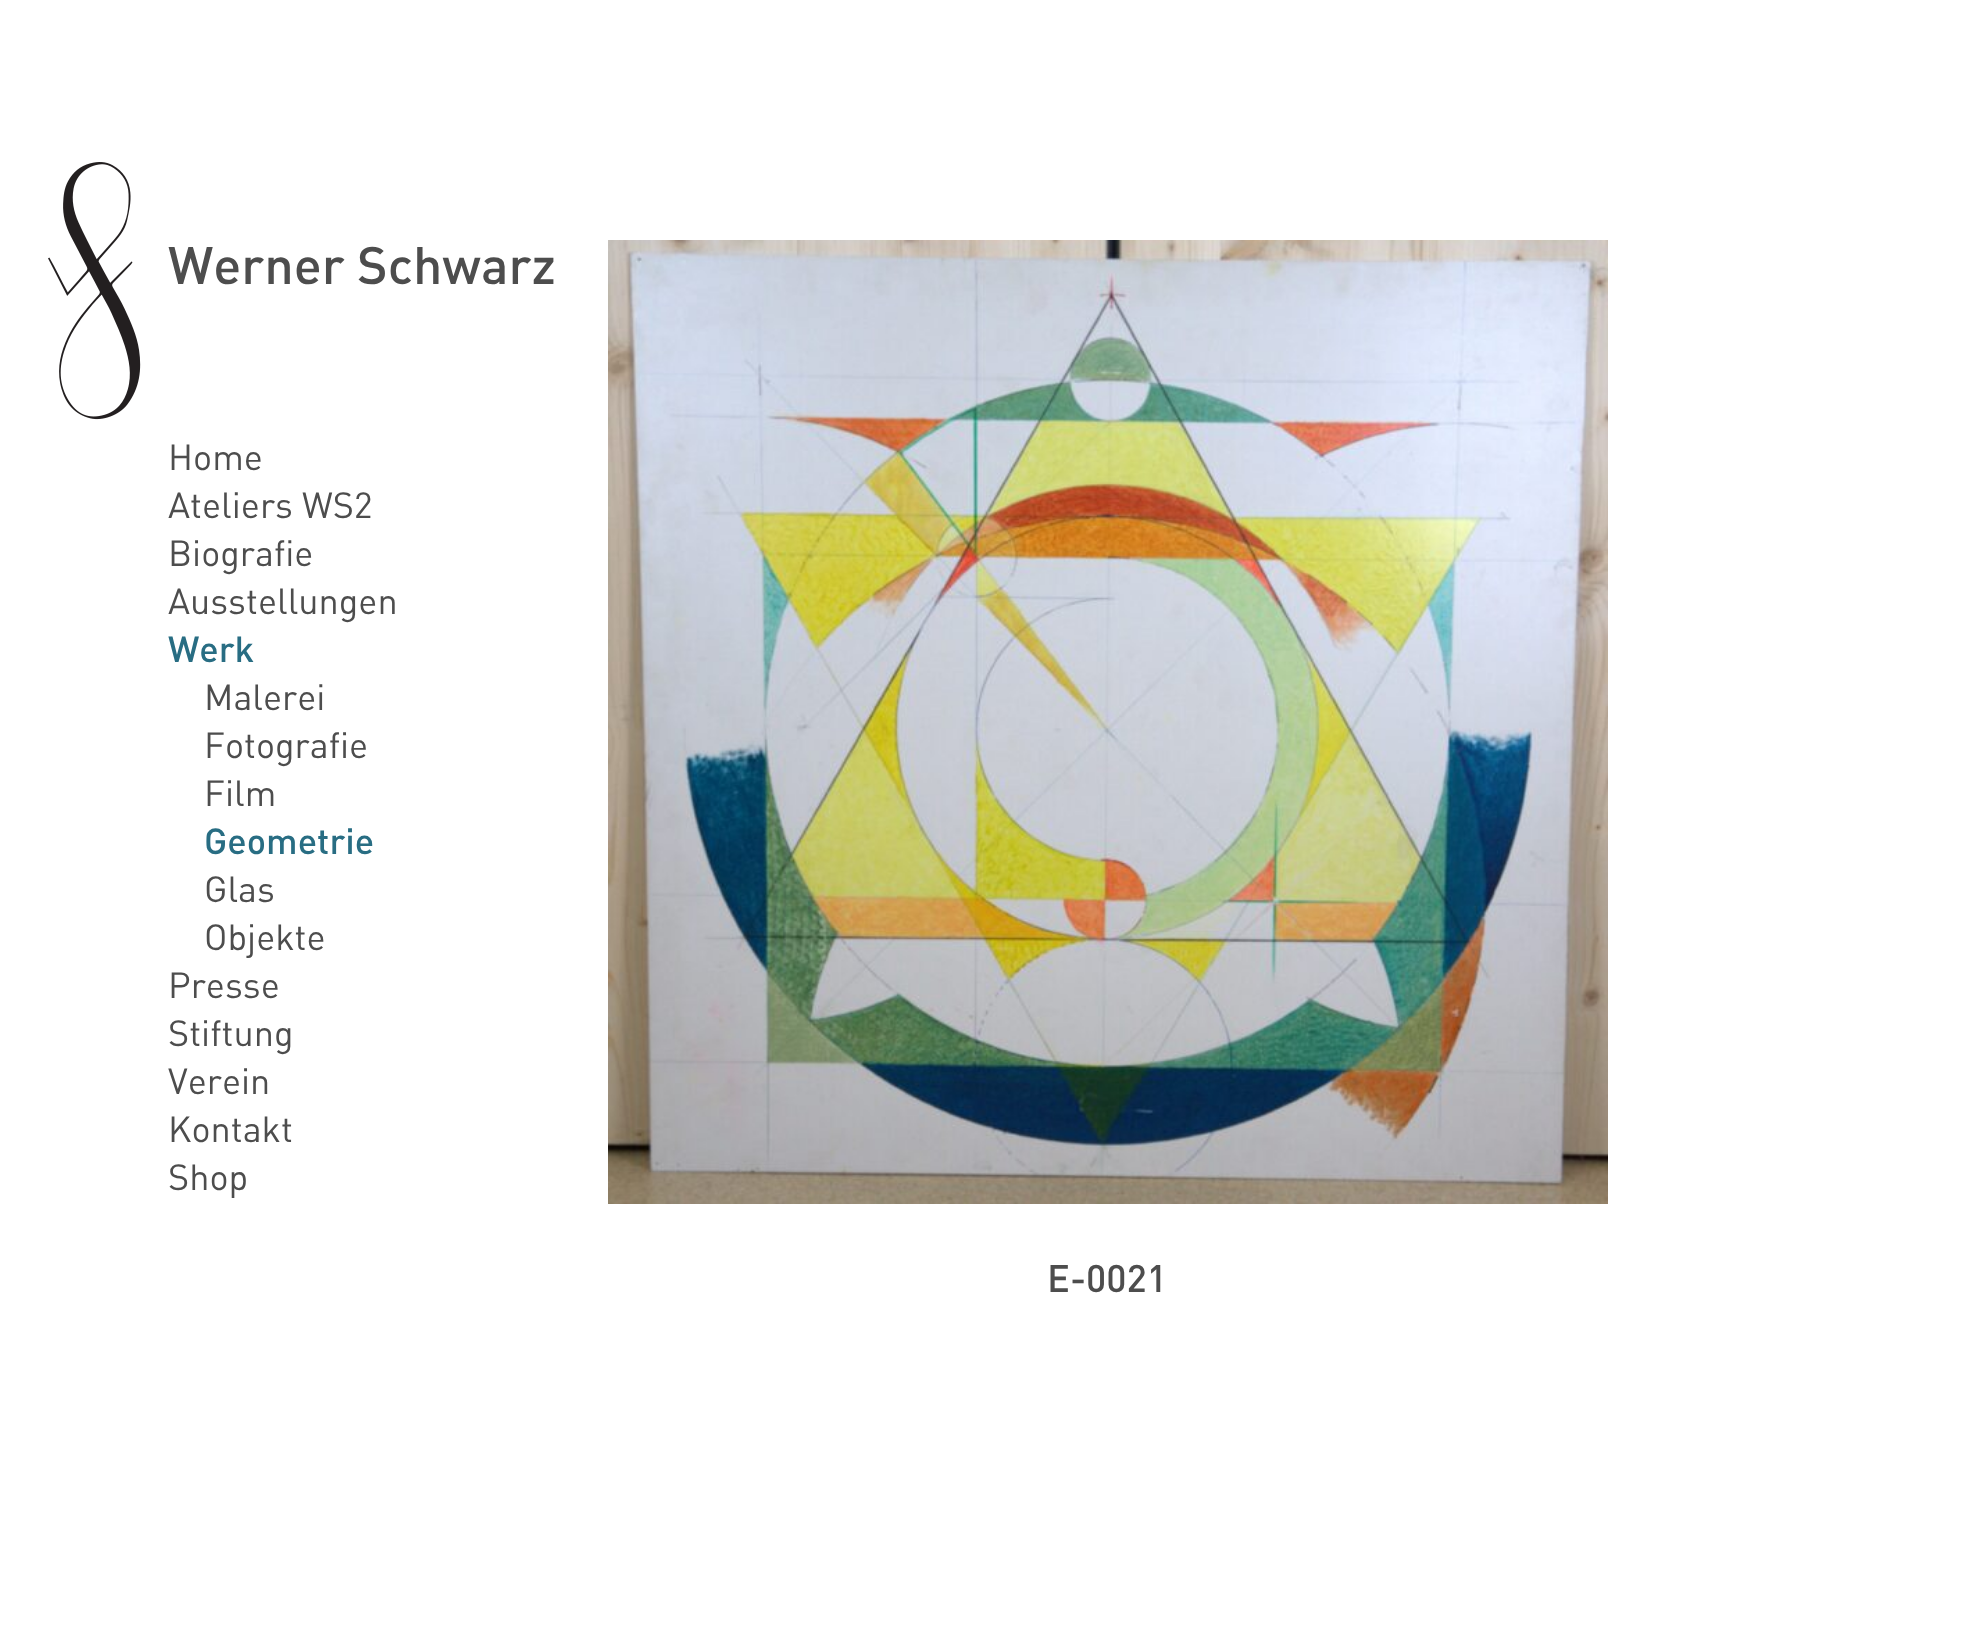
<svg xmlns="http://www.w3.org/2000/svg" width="1988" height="1638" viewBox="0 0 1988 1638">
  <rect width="100%" height="100%" fill="#fff"/>
  <image x="48" y="162" width="93" height="258" href="img/1.png"/>
  <image x="608" y="240" width="1000" height="964" href="img/2.png"/>
  <text x="168" y="284" font-family="DIN" font-size="52" font-weight="500" fill="#4d4d4d">Werner Schwarz</text>
  <g font-family="DIN" font-size="36" fill="#4d4d4d">
    <text x="168" y="470">Home</text>
    <text x="168" y="518">Ateliers WS2</text>
    <text x="168" y="566">Biografie</text>
    <text x="168" y="614">Ausstellungen</text>
  </g>
  <text x="168" y="662" font-family="DIN" font-size="36" font-weight="500" fill="#286d83">Werk</text>
  <g font-family="DIN" font-size="36" fill="#4d4d4d">
    <text x="204" y="710">Malerei</text>
    <text x="204" y="758">Fotografie</text>
    <text x="204" y="806">Film</text>
  </g>
  <text x="204" y="854" font-family="DIN" font-size="36" font-weight="500" fill="#286d83">Geometrie</text>
  <g font-family="DIN" font-size="36" fill="#4d4d4d">
    <text x="204" y="902">Glas</text>
    <text x="204" y="950">Objekte</text>
    <text x="168" y="998">Presse</text>
    <text x="168" y="1046">Stiftung</text>
    <text x="168" y="1094">Verein</text>
    <text x="168" y="1142">Kontakt</text>
    <text x="168" y="1190">Shop</text>
  </g>
  <text x="1047" y="1292" font-family="DIN" font-size="38" font-weight="500" fill="#4d4d4d">E-0021</text>
</svg>
